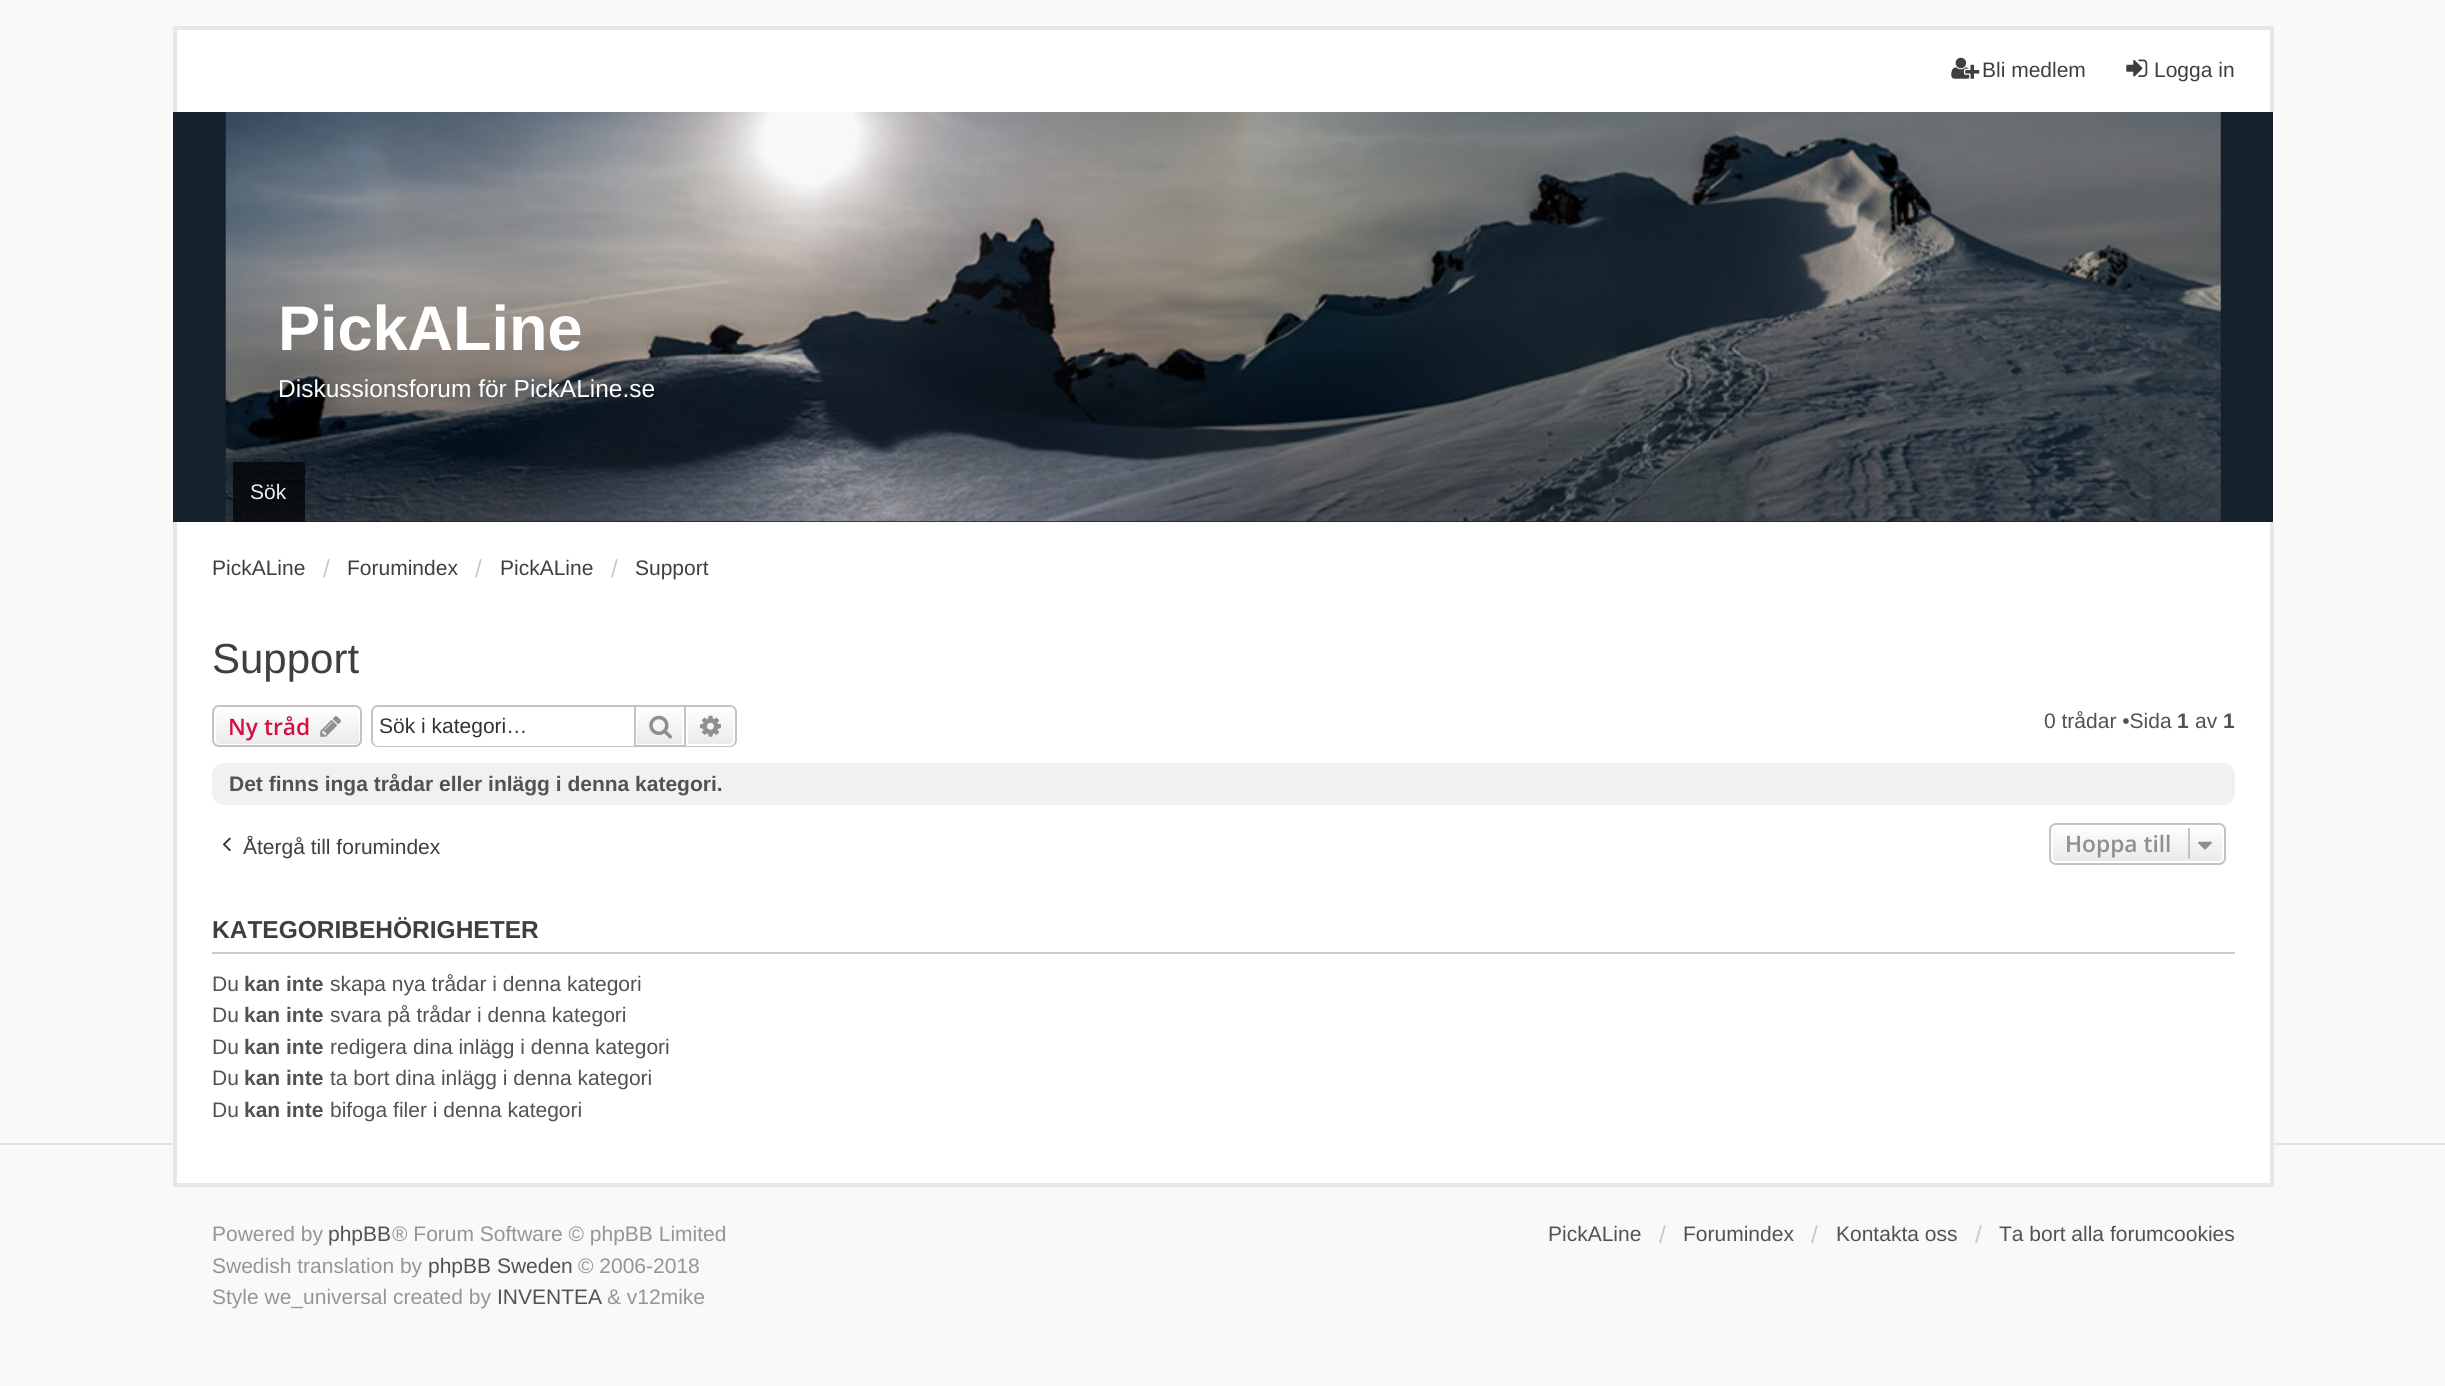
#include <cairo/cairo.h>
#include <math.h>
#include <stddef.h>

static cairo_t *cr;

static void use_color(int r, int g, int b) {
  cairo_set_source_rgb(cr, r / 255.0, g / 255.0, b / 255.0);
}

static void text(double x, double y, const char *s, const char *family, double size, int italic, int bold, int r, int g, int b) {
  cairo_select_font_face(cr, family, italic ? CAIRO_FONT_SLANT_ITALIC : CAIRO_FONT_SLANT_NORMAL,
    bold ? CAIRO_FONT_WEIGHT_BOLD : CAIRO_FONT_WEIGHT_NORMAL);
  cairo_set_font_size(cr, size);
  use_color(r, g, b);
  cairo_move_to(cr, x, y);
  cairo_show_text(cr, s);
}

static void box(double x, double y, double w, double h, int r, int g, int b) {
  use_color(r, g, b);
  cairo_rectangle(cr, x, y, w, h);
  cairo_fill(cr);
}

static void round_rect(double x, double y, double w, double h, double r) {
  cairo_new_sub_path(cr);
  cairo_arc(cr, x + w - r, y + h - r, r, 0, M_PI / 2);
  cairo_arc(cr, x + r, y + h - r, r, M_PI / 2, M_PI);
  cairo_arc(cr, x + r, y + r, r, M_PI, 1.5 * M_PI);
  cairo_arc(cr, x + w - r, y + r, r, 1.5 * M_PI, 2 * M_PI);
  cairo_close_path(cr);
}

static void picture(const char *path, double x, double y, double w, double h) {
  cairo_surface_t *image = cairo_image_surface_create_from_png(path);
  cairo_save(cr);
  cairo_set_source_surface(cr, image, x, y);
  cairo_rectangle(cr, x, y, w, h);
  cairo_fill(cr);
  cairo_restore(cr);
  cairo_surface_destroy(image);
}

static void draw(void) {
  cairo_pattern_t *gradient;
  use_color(249, 249, 249);
  cairo_paint(cr);
  box(177, 30, 2093, 82, 255, 255, 255);
  box(173, 26, 2100, 4, 231, 231, 231);
  box(2270, 26, 4, 86, 231, 231, 231);
  box(173, 26, 4, 86, 231, 231, 231);
  picture("img_01.png", 1951, 57, 29, 22);
  picture("img_02.png", 2126, 59, 22, 18);
  box(173, 112, 2100, 410, 21, 33, 45);
  picture("img_03.png", 225, 112, 1996, 410);
  cairo_set_source_rgba(cr, 0, 0, 0, 0.7);
  cairo_rectangle(cr, 233, 462, 72, 60);
  cairo_fill(cr);
  box(0, 1143, 2445, 2, 226, 226, 226);
  box(177, 522, 2093, 661, 255, 255, 255);
  box(2270, 522, 4, 665, 231, 231, 231);
  box(173, 1183, 2100, 4, 231, 231, 231);
  box(173, 522, 4, 665, 231, 231, 231);
  cairo_save(cr);
  round_rect(212, 705, 150, 42, 7);
  cairo_clip(cr);
  gradient = cairo_pattern_create_linear(287, 707, 287, 746);
  cairo_pattern_add_color_stop_rgba(gradient, 0, 1, 1, 1, 1);
  cairo_pattern_add_color_stop_rgba(gradient, 1, 0.914, 0.914, 0.914, 1);
  cairo_set_source(cr, gradient);
  cairo_pattern_destroy(gradient);
  cairo_rectangle(cr, 212, 707, 150, 39);
  cairo_fill(cr);
  cairo_restore(cr);
  round_rect(215, 708, 145, 37, 4);
  use_color(255, 255, 255);
  cairo_stroke(cr);
  round_rect(213, 706, 148, 40, 6);
  use_color(199, 195, 191);
  cairo_stroke(cr);
  picture("img_04.png", 320, 716, 21, 21);
  cairo_set_fill_rule(cr, CAIRO_FILL_RULE_EVEN_ODD);
  cairo_new_path(cr);
  cairo_move_to(cr, 378, 705);
  cairo_line_to(cr, 634, 705);
  cairo_line_to(cr, 634, 747);
  cairo_line_to(cr, 378, 747);
  cairo_curve_to(cr, 374, 747, 371, 744, 371, 740);
  cairo_line_to(cr, 371, 712);
  cairo_curve_to(cr, 371, 708, 374, 705, 378, 705);
  cairo_close_path(cr);
  cairo_move_to(cr, 378, 707);
  cairo_line_to(cr, 634, 707);
  cairo_line_to(cr, 634, 746);
  cairo_line_to(cr, 378, 746);
  cairo_curve_to(cr, 375, 746, 373, 743, 373, 740);
  cairo_line_to(cr, 373, 712);
  cairo_curve_to(cr, 373, 709, 375, 707, 378, 707);
  cairo_close_path(cr);
  cairo_fill(cr);
  gradient = cairo_pattern_create_linear(660, 707, 660, 746);
  cairo_pattern_add_color_stop_rgba(gradient, 0, 1, 1, 1, 1);
  cairo_pattern_add_color_stop_rgba(gradient, 1, 0.914, 0.914, 0.914, 1);
  cairo_set_source(cr, gradient);
  cairo_pattern_destroy(gradient);
  cairo_rectangle(cr, 637, 711, 45, 33);
  cairo_fill(cr);
  cairo_rectangle(cr, 635, 706, 50, 40);
  use_color(199, 195, 191);
  cairo_stroke(cr);
  picture("img_05.png", 649, 715, 23, 24);
  gradient = cairo_pattern_create_linear(711, 707, 711, 746);
  cairo_pattern_add_color_stop_rgba(gradient, 0, 1, 1, 1, 1);
  cairo_pattern_add_color_stop_rgba(gradient, 1, 0.914, 0.914, 0.914, 1);
  cairo_set_source(cr, gradient);
  cairo_pattern_destroy(gradient);
  cairo_new_path(cr);
  cairo_move_to(cr, 687, 708);
  cairo_line_to(cr, 730, 708);
  cairo_curve_to(cr, 732, 708, 734, 710, 734, 712);
  cairo_line_to(cr, 734, 741);
  cairo_curve_to(cr, 734, 743, 732, 745, 730, 745);
  cairo_line_to(cr, 687, 745);
  cairo_close_path(cr);
  cairo_fill_preserve(cr);
  use_color(255, 255, 255);
  cairo_stroke(cr);
  use_color(199, 195, 191);
  cairo_new_path(cr);
  cairo_move_to(cr, 686, 705);
  cairo_line_to(cr, 730, 705);
  cairo_curve_to(cr, 734, 705, 737, 708, 737, 712);
  cairo_line_to(cr, 737, 740);
  cairo_curve_to(cr, 737, 744, 734, 747, 730, 747);
  cairo_line_to(cr, 686, 747);
  cairo_close_path(cr);
  cairo_move_to(cr, 686, 707);
  cairo_line_to(cr, 730, 707);
  cairo_curve_to(cr, 733, 707, 735, 709, 735, 712);
  cairo_line_to(cr, 735, 740);
  cairo_curve_to(cr, 735, 743, 733, 746, 730, 746);
  cairo_line_to(cr, 686, 746);
  cairo_close_path(cr);
  cairo_fill(cr);
  picture("img_06.png", 700, 715, 21, 22);
  use_color(241, 241, 241);
  round_rect(212, 763, 2023, 42, 12);
  cairo_fill(cr);
  picture("img_07.png", 222, 837, 9, 15);
  cairo_save(cr);
  cairo_set_fill_rule(cr, CAIRO_FILL_RULE_WINDING);
  round_rect(2049, 823, 177, 42, 7);
  cairo_clip(cr);
  gradient = cairo_pattern_create_linear(2138, 824, 2138, 863);
  cairo_pattern_add_color_stop_rgba(gradient, 0, 1, 1, 1, 1);
  cairo_pattern_add_color_stop_rgba(gradient, 1, 0.914, 0.914, 0.914, 1);
  cairo_set_source(cr, gradient);
  cairo_pattern_destroy(gradient);
  cairo_rectangle(cr, 2049, 824, 177, 39);
  cairo_fill(cr);
  cairo_restore(cr);
  round_rect(2052, 825, 171, 37, 4);
  use_color(255, 255, 255);
  cairo_stroke(cr);
  round_rect(2050, 824, 175, 40, 6);
  use_color(199, 195, 191);
  cairo_stroke(cr);
  box(2188, 828, 2, 31, 199, 195, 191);
  picture("img_08.png", 2198, 841, 14, 9);
  box(212, 952, 2023, 2, 204, 204, 204);
  text(1982, 77, "Bli medlem", "Liberation Sans", 21, 0, 0, 63, 63, 63);
  text(2154, 77, "Logga in", "Liberation Sans", 21, 0, 0, 63, 63, 63);
  text(278, 350, "PickALine", "Liberation Sans", 63, 0, 1, 255, 255, 255);
  text(278, 397, "Diskussionsforum för PickALine.se", "Liberation Sans", 24.5, 0, 0, 255, 255, 255);
  text(250, 499, "Sök", "Liberation Sans", 21, 0, 0, 238, 238, 238);
  text(212, 575, "PickALine", "Liberation Sans", 21, 0, 0, 63, 63, 63);
  text(323, 577, "/", "Liberation Sans", 24.5, 0, 0, 202, 202, 202);
  text(347, 575, "Forumindex", "Liberation Sans", 21, 0, 0, 63, 63, 63);
  text(475, 577, "/", "Liberation Sans", 24.5, 0, 0, 202, 202, 202);
  text(500, 575, "PickALine", "Liberation Sans", 21, 0, 0, 63, 63, 63);
  text(611, 577, "/", "Liberation Sans", 24.5, 0, 0, 202, 202, 202);
  text(635, 575, "Support", "Liberation Sans", 21, 0, 0, 63, 63, 63);
  text(212, 673, "Support", "Liberation Sans", 42, 0, 0, 63, 63, 63);
  text(228, 735, "Ny tråd", "Open Sans SemiBold", 22.75, 0, 0, 211, 17, 65);
  text(379, 733, "Sök i kategori…", "Liberation Sans", 21, 0, 0, 51, 51, 51);
  text(2044, 728, "0 trådar •Sida", "Liberation Sans", 21, 0, 0, 82, 82, 82);
  text(2177, 728, "1", "Liberation Sans", 21, 0, 1, 82, 82, 82);
  text(2195, 728, "av", "Liberation Sans", 21, 0, 0, 82, 82, 82);
  text(2223, 728, "1", "Liberation Sans", 21, 0, 1, 82, 82, 82);
  text(229, 791, "Det finns inga trådar eller inlägg i denna kategori.", "Liberation Sans", 21, 0, 1, 82, 82, 82);
  text(243, 854, "Återgå till forumindex", "Liberation Sans", 21, 0, 0, 63, 63, 63);
  text(2065, 852, "Hoppa till", "Open Sans SemiBold", 22.75, 0, 0, 143, 143, 143);
  text(212, 938, "KATEGORIBEHÖRIGHETER", "Liberation Sans", 24.5, 0, 1, 63, 63, 63);
  text(212, 991, "Du", "Liberation Sans", 21, 0, 0, 82, 82, 82);
  text(244, 991, "kan inte", "Liberation Sans", 21, 0, 1, 82, 82, 82);
  text(330, 991, "skapa nya trådar i denna kategori", "Liberation Sans", 21, 0, 0, 82, 82, 82);
  text(212, 1022, "Du", "Liberation Sans", 21, 0, 0, 82, 82, 82);
  text(244, 1022, "kan inte", "Liberation Sans", 21, 0, 1, 82, 82, 82);
  text(330, 1022, "svara på trådar i denna kategori", "Liberation Sans", 21, 0, 0, 82, 82, 82);
  text(212, 1054, "Du", "Liberation Sans", 21, 0, 0, 82, 82, 82);
  text(244, 1054, "kan inte", "Liberation Sans", 21, 0, 1, 82, 82, 82);
  text(330, 1054, "redigera dina inlägg i denna kategori", "Liberation Sans", 21, 0, 0, 82, 82, 82);
  text(212, 1085, "Du", "Liberation Sans", 21, 0, 0, 82, 82, 82);
  text(244, 1085, "kan inte", "Liberation Sans", 21, 0, 1, 82, 82, 82);
  text(330, 1085, "ta bort dina inlägg i denna kategori", "Liberation Sans", 21, 0, 0, 82, 82, 82);
  text(212, 1117, "Du", "Liberation Sans", 21, 0, 0, 82, 82, 82);
  text(244, 1117, "kan inte", "Liberation Sans", 21, 0, 1, 82, 82, 82);
  text(330, 1117, "bifoga filer i denna kategori", "Liberation Sans", 21, 0, 0, 82, 82, 82);
  text(212, 1241, "Powered by", "Liberation Sans", 21, 0, 0, 149, 149, 149);
  text(328, 1241, "phpBB", "Liberation Sans", 21, 0, 0, 82, 82, 82);
  text(392, 1241, "® Forum Software © phpBB Limited", "Liberation Sans", 21, 0, 0, 149, 149, 149);
  text(212, 1273, "Swedish translation by", "Liberation Sans", 21, 0, 0, 149, 149, 149);
  text(428, 1273, "phpBB Sweden", "Liberation Sans", 21, 0, 0, 82, 82, 82);
  text(578, 1273, "© 2006-2018", "Liberation Sans", 21, 0, 0, 149, 149, 149);
  text(212, 1304, "Style we_universal created by", "Liberation Sans", 21, 0, 0, 149, 149, 149);
  text(497, 1304, "INVENTEA", "Liberation Sans", 21, 0, 0, 82, 82, 82);
  text(607, 1304, "& v12mike", "Liberation Sans", 21, 0, 0, 149, 149, 149);
  text(1548, 1241, "PickALine", "Liberation Sans", 21, 0, 0, 82, 82, 82);
  text(1659, 1243, "/", "Liberation Sans", 24.5, 0, 0, 202, 202, 202);
  text(1683, 1241, "Forumindex", "Liberation Sans", 21, 0, 0, 82, 82, 82);
  text(1811, 1243, "/", "Liberation Sans", 24.5, 0, 0, 202, 202, 202);
  text(1836, 1241, "Kontakta oss", "Liberation Sans", 21, 0, 0, 82, 82, 82);
  text(1975, 1243, "/", "Liberation Sans", 24.5, 0, 0, 202, 202, 202);
  text(1999, 1241, "Ta bort alla forumcookies", "Liberation Sans", 21, 0, 0, 82, 82, 82);
}

int main(void) {
  cairo_surface_t *surface = cairo_image_surface_create(CAIRO_FORMAT_RGB24, 2445, 1386);
  cr = cairo_create(surface);
  cairo_font_options_t *options = cairo_font_options_create();
  cairo_font_options_set_hint_metrics(options, CAIRO_HINT_METRICS_OFF);
  cairo_font_options_set_hint_style(options, CAIRO_HINT_STYLE_NONE);
  cairo_set_font_options(cr, options);
  cairo_set_miter_limit(cr, 4);
  draw();
  cairo_surface_write_to_png(surface, "out.png");
  cairo_font_options_destroy(options);
  cairo_destroy(cr);
  cairo_surface_destroy(surface);
  return 0;
}
